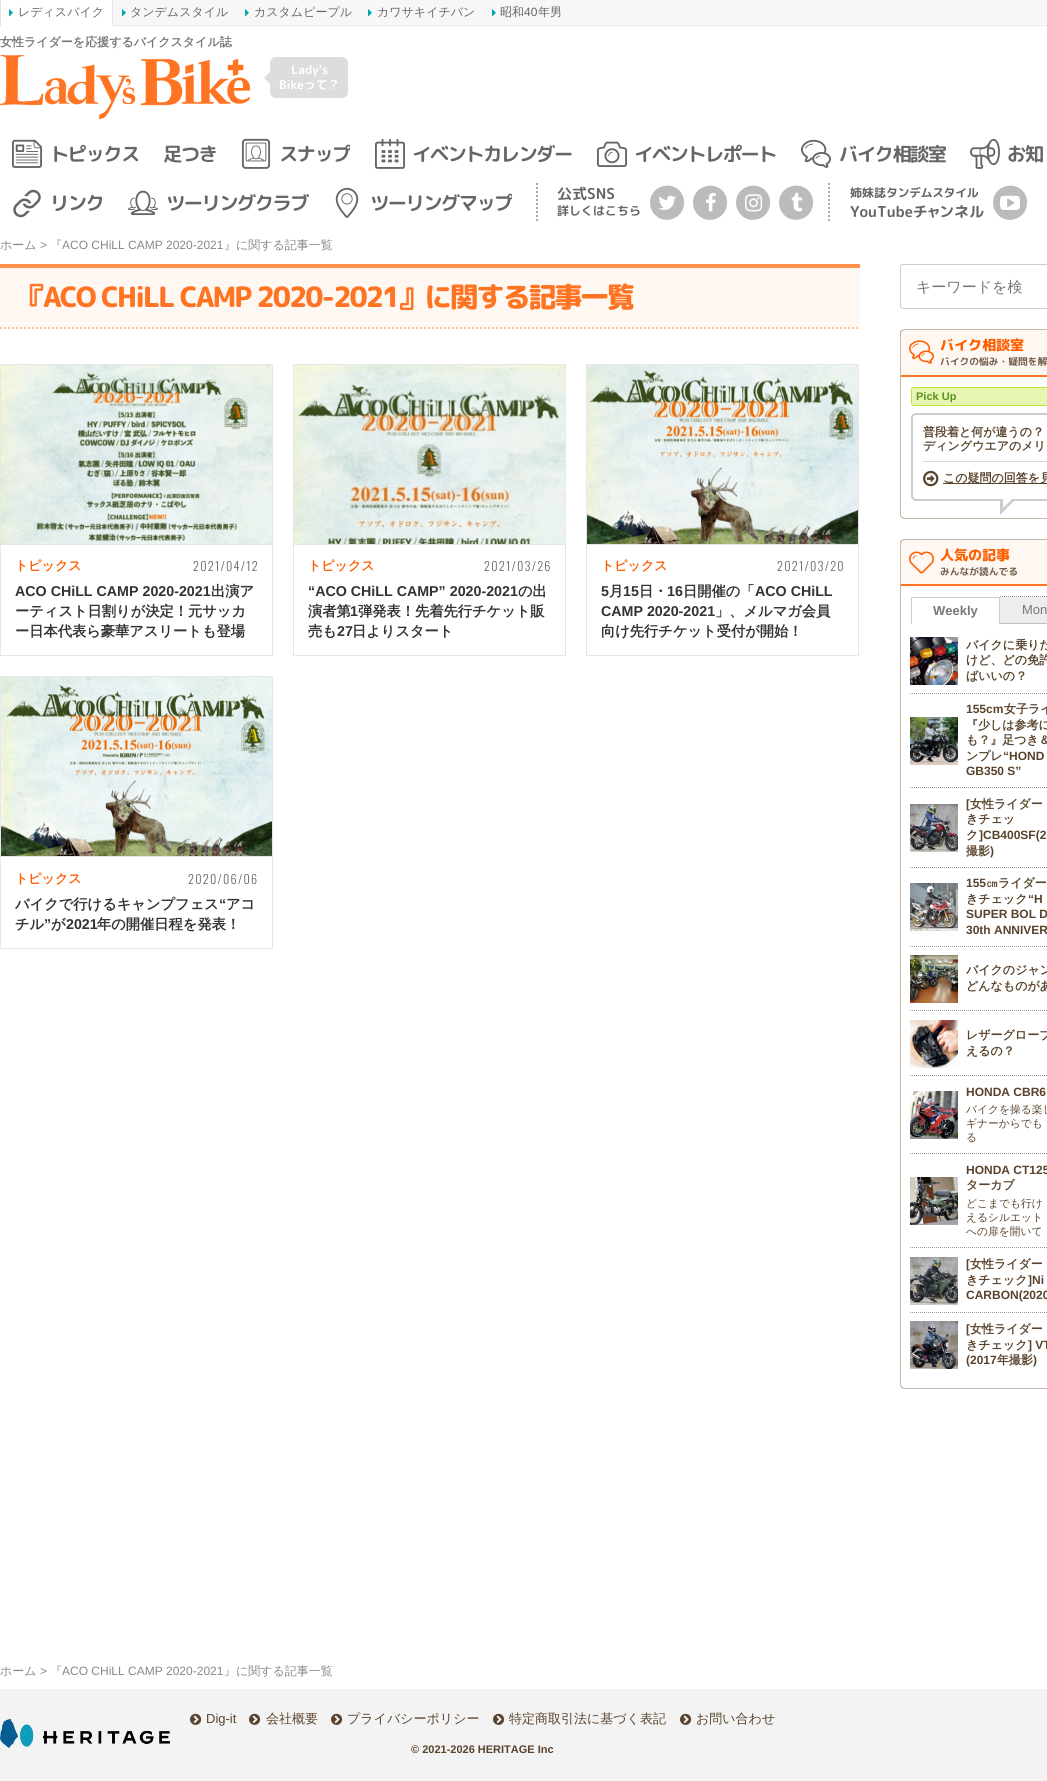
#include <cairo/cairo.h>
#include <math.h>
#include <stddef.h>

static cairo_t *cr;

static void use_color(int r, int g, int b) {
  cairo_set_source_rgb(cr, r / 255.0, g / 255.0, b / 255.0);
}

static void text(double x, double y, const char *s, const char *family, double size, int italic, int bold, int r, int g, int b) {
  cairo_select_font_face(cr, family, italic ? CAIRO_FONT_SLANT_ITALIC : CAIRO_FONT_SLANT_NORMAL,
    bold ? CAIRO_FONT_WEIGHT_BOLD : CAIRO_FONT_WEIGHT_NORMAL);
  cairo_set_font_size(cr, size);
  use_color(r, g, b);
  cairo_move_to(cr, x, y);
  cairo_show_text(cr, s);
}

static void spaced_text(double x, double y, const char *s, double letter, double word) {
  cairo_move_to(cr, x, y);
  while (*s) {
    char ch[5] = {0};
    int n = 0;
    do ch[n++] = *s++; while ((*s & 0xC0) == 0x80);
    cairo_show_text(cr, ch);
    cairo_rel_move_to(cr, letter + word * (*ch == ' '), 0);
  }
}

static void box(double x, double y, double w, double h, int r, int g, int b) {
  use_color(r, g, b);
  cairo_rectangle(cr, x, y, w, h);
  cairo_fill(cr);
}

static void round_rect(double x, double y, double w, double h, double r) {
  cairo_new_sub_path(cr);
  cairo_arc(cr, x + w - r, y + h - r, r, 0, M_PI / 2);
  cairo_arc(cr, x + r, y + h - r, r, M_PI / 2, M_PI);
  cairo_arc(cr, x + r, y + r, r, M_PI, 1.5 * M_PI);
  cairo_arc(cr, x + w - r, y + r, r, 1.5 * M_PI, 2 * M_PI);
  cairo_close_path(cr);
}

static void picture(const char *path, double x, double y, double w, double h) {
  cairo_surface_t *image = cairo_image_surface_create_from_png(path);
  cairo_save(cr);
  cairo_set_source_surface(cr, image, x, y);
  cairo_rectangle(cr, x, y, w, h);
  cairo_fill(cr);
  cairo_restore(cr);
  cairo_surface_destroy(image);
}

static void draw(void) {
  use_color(255, 255, 255);
  cairo_paint(cr);
  box(113, 0, 934, 25, 247, 247, 247);
  box(113, 25, 934, 1, 235, 235, 235);
  box(112, 0, 1, 26, 227, 227, 227);
  box(0, 0, 1, 26, 227, 227, 227);
  picture("img_01.png", 9, 9, 4, 8);
  picture("img_02.png", 122, 9, 4, 8);
  picture("img_02.png", 245, 9, 4, 8);
  picture("img_02.png", 368, 9, 4, 8);
  picture("img_02.png", 492, 9, 4, 8);
  picture("img_03.png", 0, 55, 250, 64);
  use_color(221, 221, 221);
  round_rect(270, 57, 78, 41, 6);
  cairo_fill(cr);
  cairo_new_path(cr);
  cairo_move_to(cr, 270, 72);
  cairo_line_to(cr, 270, 84);
  cairo_line_to(cr, 264, 78);
  cairo_close_path(cr);
  cairo_fill(cr);
  picture("img_04.png", 12, 139, 30, 29);
  picture("img_05.png", 241, 138, 30, 31);
  picture("img_06.png", 375, 138, 30, 31);
  picture("img_07.png", 597, 141, 30, 26);
  picture("img_08.png", 801, 139, 30, 29);
  picture("img_09.png", 970, 138, 30, 31);
  picture("img_10.png", 13, 189, 28, 29);
  picture("img_11.png", 128, 190, 30, 26);
  picture("img_12.png", 335, 187, 24, 31);
  cairo_new_path(cr);
  cairo_move_to(cr, 537, 183);
  cairo_line_to(cr, 537, 223);
  use_color(170, 170, 170);
  cairo_set_dash(cr, (double[]){2, 2}, 2, 0);
  cairo_stroke(cr);
  use_color(187, 187, 187);
  cairo_new_path(cr);
  cairo_move_to(cr, 682, 194);
  cairo_curve_to(cr, 683.5, 197, 684.5, 200.5, 684, 204);
  cairo_curve_to(cr, 683, 220.5, 660.5, 226, 652.5, 211.5);
  cairo_curve_to(cr, 650.5, 208.5, 650, 205, 650, 201.5);
  cairo_curve_to(cr, 651, 185, 673.5, 179.5, 682, 194);
  cairo_close_path(cr);
  cairo_fill(cr);
  picture("img_13.png", 658, 195, 18, 15);
  cairo_new_path(cr);
  cairo_move_to(cr, 725, 194);
  cairo_curve_to(cr, 726.5, 197, 727.5, 200.5, 727, 204);
  cairo_curve_to(cr, 726, 220.5, 703.5, 226, 695.5, 211.5);
  cairo_curve_to(cr, 693.5, 208.5, 693, 205, 693, 201.5);
  cairo_curve_to(cr, 694, 185, 716.5, 179.5, 725, 194);
  cairo_close_path(cr);
  cairo_fill(cr);
  picture("img_14.png", 706, 192, 10, 20);
  cairo_new_path(cr);
  cairo_move_to(cr, 768, 194);
  cairo_curve_to(cr, 769.5, 197, 770.5, 200.5, 770, 204);
  cairo_curve_to(cr, 769, 220.5, 746.5, 226, 738.5, 211.5);
  cairo_curve_to(cr, 736.5, 208.5, 736, 205, 736, 201.5);
  cairo_curve_to(cr, 737, 185, 759.5, 179.5, 768, 194);
  cairo_close_path(cr);
  cairo_fill(cr);
  picture("img_15.png", 745, 194, 18, 18);
  cairo_new_path(cr);
  cairo_move_to(cr, 811, 194);
  cairo_curve_to(cr, 812.5, 197, 813.5, 200.5, 813, 204);
  cairo_curve_to(cr, 812, 220.5, 789.5, 226, 781.5, 211.5);
  cairo_curve_to(cr, 779.5, 208.5, 779, 205, 779, 201.5);
  cairo_curve_to(cr, 780, 185, 802.5, 179.5, 811, 194);
  cairo_close_path(cr);
  cairo_fill(cr);
  picture("img_16.png", 791, 192, 12, 20);
  cairo_new_path(cr);
  cairo_move_to(cr, 829, 183);
  cairo_line_to(cr, 829, 223);
  use_color(170, 170, 170);
  cairo_stroke(cr);
  use_color(187, 187, 187);
  cairo_new_path(cr);
  cairo_move_to(cr, 1025, 194);
  cairo_curve_to(cr, 1026.5, 197, 1027.5, 200.5, 1027, 204);
  cairo_curve_to(cr, 1026, 220.5, 1003.5, 226, 995.5, 211.5);
  cairo_curve_to(cr, 993.5, 208.5, 993, 205, 993, 201.5);
  cairo_curve_to(cr, 994, 185, 1016.5, 179.5, 1025, 194);
  cairo_close_path(cr);
  cairo_fill(cr);
  picture("img_17.png", 1000, 195, 20, 15);
  box(0, 268, 860, 61, 255, 247, 242);
  box(0, 264, 860, 4, 255, 144, 78);
  cairo_new_path(cr);
  cairo_move_to(cr, 0, 328);
  cairo_line_to(cr, 860, 328);
  use_color(255, 199, 167);
  cairo_stroke(cr);
  cairo_rectangle(cr, 0.5, 364.5, 272, 291);
  use_color(231, 231, 231);
  cairo_set_line_width(cr, 1);
  cairo_set_dash(cr, NULL, 0, 0);
  cairo_stroke(cr);
  box(1, 544, 271, 1, 231, 231, 231);
  picture("img_18.png", 1, 365, 271, 179);
  cairo_rectangle(cr, 293.5, 364.5, 272, 291);
  cairo_stroke(cr);
  box(294, 544, 271, 1, 231, 231, 231);
  picture("img_19.png", 294, 365, 271, 179);
  cairo_rectangle(cr, 586.5, 364.5, 272, 291);
  cairo_stroke(cr);
  box(587, 544, 271, 1, 231, 231, 231);
  picture("img_20.png", 587, 365, 271, 179);
  cairo_rectangle(cr, 0.5, 676.5, 272, 272);
  cairo_stroke(cr);
  box(1, 856, 271, 1, 231, 231, 231);
  picture("img_21.png", 1, 677, 271, 179);
  round_rect(900.5, 264.5, 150, 44, 2.5);
  use_color(204, 204, 204);
  cairo_stroke(cr);
  use_color(255, 247, 242);
  cairo_new_path(cr);
  cairo_move_to(cr, 905, 330);
  cairo_line_to(cr, 1047, 330);
  cairo_curve_to(cr, 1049, 330, 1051, 332, 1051, 334);
  cairo_line_to(cr, 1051, 375);
  cairo_line_to(cr, 901, 375);
  cairo_line_to(cr, 901, 334);
  cairo_curve_to(cr, 901, 332, 903, 330, 905, 330);
  cairo_close_path(cr);
  cairo_fill(cr);
  use_color(195, 185, 171);
  cairo_new_path(cr);
  cairo_move_to(cr, 905, 329);
  cairo_curve_to(cr, 904, 329, 902, 330, 901, 330);
  cairo_line_to(cr, 902, 331);
  cairo_line_to(cr, 905, 330);
  cairo_line_to(cr, 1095, 330);
  cairo_line_to(cr, 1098, 331);
  cairo_line_to(cr, 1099, 330);
  cairo_curve_to(cr, 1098, 330, 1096, 329, 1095, 329);
  cairo_close_path(cr);
  cairo_fill(cr);
  use_color(255, 116, 34);
  cairo_new_path(cr);
  cairo_move_to(cr, 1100, 377);
  cairo_line_to(cr, 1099, 375);
  cairo_line_to(cr, 901, 375);
  cairo_line_to(cr, 900, 377);
  cairo_close_path(cr);
  cairo_fill(cr);
  use_color(195, 185, 171);
  cairo_new_path(cr);
  cairo_move_to(cr, 900, 377);
  cairo_line_to(cr, 901, 375);
  cairo_line_to(cr, 901, 334);
  cairo_curve_to(cr, 901, 333, 902, 332, 902, 331);
  cairo_line_to(cr, 901, 330);
  cairo_curve_to(cr, 900, 331, 900, 332, 900, 334);
  cairo_close_path(cr);
  cairo_fill(cr);
  picture("img_22.png", 909, 340, 25, 24);
  cairo_set_fill_rule(cr, CAIRO_FILL_RULE_EVEN_ODD);
  cairo_new_path(cr);
  cairo_move_to(cr, 900, 377);
  cairo_line_to(cr, 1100, 377);
  cairo_line_to(cr, 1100, 514);
  cairo_curve_to(cr, 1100, 517, 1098, 519, 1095, 519);
  cairo_line_to(cr, 905, 519);
  cairo_curve_to(cr, 902, 519, 900, 517, 900, 514);
  cairo_close_path(cr);
  cairo_move_to(cr, 901, 377);
  cairo_line_to(cr, 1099, 377);
  cairo_line_to(cr, 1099, 514);
  cairo_curve_to(cr, 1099, 516, 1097, 518, 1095, 518);
  cairo_line_to(cr, 905, 518);
  cairo_curve_to(cr, 903, 518, 901, 516, 901, 514);
  cairo_close_path(cr);
  cairo_fill(cr);
  use_color(230, 245, 177);
  round_rect(911.5, 387.5, 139, 18, 2.5);
  cairo_fill_preserve(cr);
  use_color(191, 230, 62);
  cairo_stroke(cr);
  round_rect(912, 414, 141, 86, 4);
  use_color(204, 204, 204);
  cairo_set_line_width(cr, 2);
  cairo_stroke(cr);
  box(923, 461, 124, 1, 220, 214, 205);
  picture("img_23.png", 923, 470, 16, 17);
  box(943, 483, 104, 1, 89, 67, 44);
  use_color(204, 204, 204);
  cairo_set_fill_rule(cr, CAIRO_FILL_RULE_WINDING);
  cairo_new_path(cr);
  cairo_move_to(cr, 1000, 499);
  cairo_line_to(cr, 1016, 499);
  cairo_line_to(cr, 1008, 507);
  cairo_close_path(cr);
  cairo_fill(cr);
  cairo_new_path(cr);
  cairo_move_to(cr, 1000, 515);
  cairo_line_to(cr, 1000, 499);
  cairo_line_to(cr, 1008, 507);
  cairo_close_path(cr);
  cairo_fill(cr);
  use_color(255, 255, 255);
  cairo_new_path(cr);
  cairo_move_to(cr, 1003, 498);
  cairo_line_to(cr, 1013, 498);
  cairo_line_to(cr, 1008, 503);
  cairo_close_path(cr);
  cairo_fill(cr);
  cairo_new_path(cr);
  cairo_move_to(cr, 1003, 508);
  cairo_line_to(cr, 1003, 498);
  cairo_line_to(cr, 1008, 503);
  cairo_close_path(cr);
  cairo_fill(cr);
  use_color(255, 247, 242);
  cairo_new_path(cr);
  cairo_move_to(cr, 905, 540);
  cairo_line_to(cr, 1047, 540);
  cairo_curve_to(cr, 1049, 540, 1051, 542, 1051, 544);
  cairo_line_to(cr, 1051, 584);
  cairo_line_to(cr, 901, 584);
  cairo_line_to(cr, 901, 544);
  cairo_curve_to(cr, 901, 542, 903, 540, 905, 540);
  cairo_close_path(cr);
  cairo_fill(cr);
  use_color(195, 185, 171);
  cairo_new_path(cr);
  cairo_move_to(cr, 905, 539);
  cairo_curve_to(cr, 904, 539, 902, 540, 901, 540);
  cairo_line_to(cr, 902, 541);
  cairo_line_to(cr, 905, 540);
  cairo_line_to(cr, 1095, 540);
  cairo_line_to(cr, 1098, 541);
  cairo_line_to(cr, 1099, 540);
  cairo_curve_to(cr, 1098, 540, 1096, 539, 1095, 539);
  cairo_close_path(cr);
  cairo_fill(cr);
  use_color(255, 116, 34);
  cairo_new_path(cr);
  cairo_move_to(cr, 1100, 586);
  cairo_line_to(cr, 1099, 584);
  cairo_line_to(cr, 901, 584);
  cairo_line_to(cr, 900, 586);
  cairo_close_path(cr);
  cairo_fill(cr);
  use_color(195, 185, 171);
  cairo_new_path(cr);
  cairo_move_to(cr, 900, 586);
  cairo_line_to(cr, 901, 584);
  cairo_line_to(cr, 901, 544);
  cairo_curve_to(cr, 901, 543, 902, 542, 902, 541);
  cairo_line_to(cr, 901, 540);
  cairo_curve_to(cr, 900, 541, 900, 542, 900, 544);
  cairo_close_path(cr);
  cairo_fill(cr);
  picture("img_24.png", 909, 551, 25, 23);
  cairo_set_fill_rule(cr, CAIRO_FILL_RULE_EVEN_ODD);
  cairo_new_path(cr);
  cairo_move_to(cr, 900, 586);
  cairo_line_to(cr, 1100, 586);
  cairo_line_to(cr, 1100, 1384);
  cairo_curve_to(cr, 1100, 1387, 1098, 1389, 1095, 1389);
  cairo_line_to(cr, 905, 1389);
  cairo_curve_to(cr, 902, 1389, 900, 1387, 900, 1384);
  cairo_close_path(cr);
  cairo_move_to(cr, 901, 586);
  cairo_line_to(cr, 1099, 586);
  cairo_line_to(cr, 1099, 1384);
  cairo_curve_to(cr, 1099, 1386, 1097, 1388, 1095, 1388);
  cairo_line_to(cr, 905, 1388);
  cairo_curve_to(cr, 903, 1388, 901, 1386, 901, 1384);
  cairo_close_path(cr);
  cairo_fill(cr);
  use_color(204, 204, 204);
  cairo_set_fill_rule(cr, CAIRO_FILL_RULE_WINDING);
  cairo_new_path(cr);
  cairo_move_to(cr, 911, 597);
  cairo_line_to(cr, 1000, 597);
  cairo_line_to(cr, 999, 598);
  cairo_line_to(cr, 912, 598);
  cairo_close_path(cr);
  cairo_fill(cr);
  cairo_set_source_rgba(cr, 0, 0, 0, 0.2);
  cairo_new_path(cr);
  cairo_move_to(cr, 1000, 597);
  cairo_line_to(cr, 1000, 624);
  cairo_line_to(cr, 999, 624);
  cairo_line_to(cr, 999, 598);
  cairo_close_path(cr);
  cairo_fill(cr);
  cairo_new_path(cr);
  cairo_move_to(cr, 911, 624);
  cairo_line_to(cr, 911, 597);
  cairo_line_to(cr, 912, 598);
  cairo_line_to(cr, 912, 624);
  cairo_close_path(cr);
  cairo_fill(cr);
  cairo_new_path(cr);
  cairo_move_to(cr, 1000, 596.5);
  cairo_line_to(cr, 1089, 596.5);
  use_color(153, 153, 153);
  cairo_set_line_width(cr, 1);
  cairo_set_dash(cr, (double[]){1, 1}, 2, 0);
  cairo_stroke(cr);
  box(1000, 597, 47, 26, 237, 237, 237);
  box(1000, 623, 47, 1, 190, 190, 190);
  picture("img_25.png", 910, 637, 48, 48);
  cairo_new_path(cr);
  cairo_move_to(cr, 910, 693.5);
  cairo_line_to(cr, 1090, 693.5);
  use_color(153, 153, 153);
  cairo_stroke(cr);
  picture("img_26.png", 910, 717, 48, 48);
  cairo_new_path(cr);
  cairo_move_to(cr, 910, 787.5);
  cairo_line_to(cr, 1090, 787.5);
  cairo_stroke(cr);
  picture("img_27.png", 910, 804, 48, 48);
  cairo_new_path(cr);
  cairo_move_to(cr, 910, 867.5);
  cairo_line_to(cr, 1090, 867.5);
  cairo_stroke(cr);
  picture("img_28.png", 910, 883, 48, 48);
  cairo_new_path(cr);
  cairo_move_to(cr, 910, 946.5);
  cairo_line_to(cr, 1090, 946.5);
  cairo_stroke(cr);
  picture("img_29.png", 910, 955, 48, 48);
  cairo_new_path(cr);
  cairo_move_to(cr, 910, 1010.5);
  cairo_line_to(cr, 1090, 1010.5);
  cairo_stroke(cr);
  picture("img_30.png", 910, 1020, 48, 48);
  cairo_new_path(cr);
  cairo_move_to(cr, 910, 1075.5);
  cairo_line_to(cr, 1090, 1075.5);
  cairo_stroke(cr);
  picture("img_31.png", 910, 1091, 48, 48);
  cairo_new_path(cr);
  cairo_move_to(cr, 910, 1153.5);
  cairo_line_to(cr, 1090, 1153.5);
  cairo_stroke(cr);
  picture("img_32.png", 910, 1177, 48, 48);
  cairo_new_path(cr);
  cairo_move_to(cr, 910, 1247.5);
  cairo_line_to(cr, 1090, 1247.5);
  cairo_stroke(cr);
  picture("img_33.png", 910, 1257, 48, 48);
  cairo_new_path(cr);
  cairo_move_to(cr, 910, 1312.5);
  cairo_line_to(cr, 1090, 1312.5);
  cairo_stroke(cr);
  picture("img_34.png", 910, 1321, 48, 48);
  box(0, 1689, 1047, 92, 243, 243, 243);
  picture("img_35.png", 0, 1719, 170, 29);
  picture("img_36.png", 190, 1713, 12, 12);
  picture("img_36.png", 249, 1713, 12, 12);
  picture("img_36.png", 331, 1713, 12, 12);
  picture("img_36.png", 493, 1713, 12, 12);
  picture("img_36.png", 680, 1713, 12, 12);
  text(18, 16, "レディスバイク", "WenQuanYi Zen Hei Medium", 12, 0, 0, 102, 102, 102);
  text(130, 16, "タンデムスタイル", "WenQuanYi Zen Hei Medium", 12, 0, 0, 102, 102, 102);
  text(254, 16, "カスタムピープル", "WenQuanYi Zen Hei Medium", 12, 0, 0, 102, 102, 102);
  text(377, 16, "カワサキイチバン", "WenQuanYi Zen Hei Medium", 12, 0, 0, 102, 102, 102);
  text(500, 16, "昭和", "WenQuanYi Zen Hei Medium", 12, 0, 0, 102, 102, 102);
  text(524, 16, "40", "Liberation Sans", 12, 0, 0, 102, 102, 102);
  text(538, 16, "年男", "WenQuanYi Zen Hei Medium", 12, 0, 0, 102, 102, 102);
  text(0, 46, "女性ライダーを応援するバイクスタイル誌", "WenQuanYi Zen Hei", 12, 0, 1, 119, 119, 119);
  text(291, 74, "Lady's", "Rounded Mplus 1c Bold", 12, 0, 1, 255, 255, 255);
  text(279, 89, "Bikeって？", "Rounded Mplus 1c Bold", 12, 0, 1, 255, 255, 255);
  cairo_set_font_size(cr, 19.25);
  use_color(102, 102, 102);
  spaced_text(50, 161, "トピックス", -1.5, 0);
  spaced_text(163, 161, "足つき", -1.5, 0);
  cairo_save(cr);
  cairo_rectangle(cr, 241, 129, 109, 49);
  cairo_clip(cr);
  spaced_text(279, 161, "スナップ", -1.5, 0);
  cairo_restore(cr);
  spaced_text(412, 161, "イベントカレンダー", -1.5, 0);
  spaced_text(634, 161, "イベントレポート", -1.5, 0);
  spaced_text(839, 161, "バイク相談室", -1.5, 0);
  spaced_text(1007, 161, "お知", -1.5, 0);
  spaced_text(50, 210, "リンク", -1.5, 0);
  spaced_text(166, 210, "ツーリングクラブ", -1.5, 0);
  cairo_save(cr);
  cairo_rectangle(cr, 332, 178, 180, 50);
  cairo_clip(cr);
  spaced_text(370, 210, "ツーリングマップ", -1.5, 0);
  cairo_restore(cr);
  text(557, 199, "公式SNS", "Rounded Mplus 1c Bold", 15, 0, 1, 102, 102, 102);
  text(557, 215, "詳しくはこちら", "Rounded Mplus 1c Bold", 12, 0, 1, 102, 102, 102);
  text(850, 197, "姉妹誌", "Rounded Mplus 1c Bold", 12, 0, 1, 102, 102, 102);
  spaced_text(886, 197, "タンデムスタイル", -0.5, 0);
  text(850, 217, "YouTubeチ", "Rounded Mplus 1c Bold", 15, 0, 1, 102, 102, 102);
  text(926, 217, "ャ", "Rounded Mplus 1c Bold", 15, 0, 1, 102, 102, 102);
  text(939, 217, "ンネル", "Rounded Mplus 1c Bold", 15, 0, 1, 102, 102, 102);
  text(0, 249, "ホーム", "WenQuanYi Zen Hei Medium", 12, 0, 0, 136, 136, 136);
  text(40, 249, ">", "Liberation Sans", 12, 0, 0, 136, 136, 136);
  text(50, 249, "『", "WenQuanYi Zen Hei Medium", 12, 0, 0, 136, 136, 136);
  text(62, 249, "ACO CHiLL CAMP 2020-2021", "Liberation Sans", 12, 0, 0, 136, 136, 136);
  text(224, 249, "』に関する記事一覧", "WenQuanYi Zen Hei Medium", 12, 0, 0, 136, 136, 136);
  cairo_select_font_face(cr, "Rounded Mplus 1c ExtraBold", CAIRO_FONT_SLANT_NORMAL, CAIRO_FONT_WEIGHT_NORMAL);
  cairo_set_font_size(cr, 28);
  use_color(255, 116, 34);
  spaced_text(17, 307, "『ACO CHiLL CAMP 2020-2021』に関する記事一覧", -1.95, 0);
  text(15, 570, "トピックス", "WenQuanYi Zen Hei", 13, 0, 1, 253, 94, 0);
  cairo_select_font_face(cr, "Oswald Light", CAIRO_FONT_SLANT_NORMAL, CAIRO_FONT_WEIGHT_NORMAL);
  cairo_set_font_size(cr, 12.25);
  use_color(102, 102, 102);
  spaced_text(193, 571, "2021/04/12", 1.25, 0);
  text(15, 596, "ACO CHiLL CAMP 2020-2021", "Liberation Sans", 14.25, 0, 1, 51, 51, 51);
  text(211, 596, "出演ア", "WenQuanYi Zen Hei", 14.25, 0, 1, 51, 51, 51);
  text(15, 616, "ーティスト日割りが決定！元サッカ", "WenQuanYi Zen Hei", 14.25, 0, 1, 51, 51, 51);
  text(15, 636, "ー日本代表ら豪華アスリートも登場", "WenQuanYi Zen Hei", 14.25, 0, 1, 51, 51, 51);
  text(308, 570, "トピックス", "WenQuanYi Zen Hei", 13, 0, 1, 253, 94, 0);
  cairo_select_font_face(cr, "Oswald Light", CAIRO_FONT_SLANT_NORMAL, CAIRO_FONT_WEIGHT_NORMAL);
  cairo_set_font_size(cr, 12.25);
  use_color(102, 102, 102);
  spaced_text(484, 571, "2021/03/26", 1.25, 0);
  text(308, 596, "“ACO CHiLL CAMP” 2020-2021", "Liberation Sans", 14.25, 0, 1, 51, 51, 51);
  text(518, 596, "の出", "WenQuanYi Zen Hei", 14.25, 0, 1, 51, 51, 51);
  text(308, 616, "演者第", "WenQuanYi Zen Hei", 14.25, 0, 1, 51, 51, 51);
  text(350, 616, "1", "Liberation Sans", 14.25, 0, 1, 51, 51, 51);
  text(358, 616, "弾発表！先着先行チケット販", "WenQuanYi Zen Hei", 14.25, 0, 1, 51, 51, 51);
  text(308, 636, "売も", "WenQuanYi Zen Hei", 14.25, 0, 1, 51, 51, 51);
  text(337, 636, "27", "Liberation Sans", 14.25, 0, 1, 51, 51, 51);
  text(352, 636, "日よりスタート", "WenQuanYi Zen Hei", 14.25, 0, 1, 51, 51, 51);
  text(601, 570, "トピックス", "WenQuanYi Zen Hei", 13, 0, 1, 253, 94, 0);
  cairo_select_font_face(cr, "Oswald Light", CAIRO_FONT_SLANT_NORMAL, CAIRO_FONT_WEIGHT_NORMAL);
  cairo_set_font_size(cr, 12.25);
  use_color(102, 102, 102);
  spaced_text(777, 571, "2021/03/20", 1.25, 0);
  text(601, 596, "5", "Liberation Sans", 14.25, 0, 1, 51, 51, 51);
  text(609, 596, "月", "WenQuanYi Zen Hei", 14.25, 0, 1, 51, 51, 51);
  text(623, 596, "15", "Liberation Sans", 14.25, 0, 1, 51, 51, 51);
  text(639, 596, "日・", "WenQuanYi Zen Hei", 14.25, 0, 1, 51, 51, 51);
  text(667, 596, "16", "Liberation Sans", 14.25, 0, 1, 51, 51, 51);
  text(683, 596, "日開催の「", "WenQuanYi Zen Hei", 14.25, 0, 1, 51, 51, 51);
  text(755, 596, "ACO CHiLL", "Liberation Sans", 14.25, 0, 1, 51, 51, 51);
  text(601, 616, "CAMP 2020-2021", "Liberation Sans", 14.25, 0, 1, 51, 51, 51);
  text(715, 616, "」、メルマガ会員", "WenQuanYi Zen Hei", 14.25, 0, 1, 51, 51, 51);
  text(601, 636, "向け先行チケット受付が開始！", "WenQuanYi Zen Hei", 14.25, 0, 1, 51, 51, 51);
  text(15, 883, "トピックス", "WenQuanYi Zen Hei", 13, 0, 1, 253, 94, 0);
  cairo_select_font_face(cr, "Oswald Light", CAIRO_FONT_SLANT_NORMAL, CAIRO_FONT_WEIGHT_NORMAL);
  cairo_set_font_size(cr, 12.25);
  use_color(102, 102, 102);
  spaced_text(188, 884, "2020/06/06", 1.25, 0);
  text(15, 909, "バイクで行けるキャンプフェス", "WenQuanYi Zen Hei", 14.25, 0, 1, 51, 51, 51);
  text(219, 909, "“", "Liberation Sans", 14.25, 0, 1, 51, 51, 51);
  text(226, 909, "アコ", "WenQuanYi Zen Hei", 14.25, 0, 1, 51, 51, 51);
  text(15, 929, "チル", "WenQuanYi Zen Hei", 14.25, 0, 1, 51, 51, 51);
  text(44, 929, "”", "Liberation Sans", 14.25, 0, 1, 51, 51, 51);
  text(51, 929, "が", "WenQuanYi Zen Hei", 14.25, 0, 1, 51, 51, 51);
  text(66, 929, "2021", "Liberation Sans", 14.25, 0, 1, 51, 51, 51);
  text(97, 929, "年の開催日程を発表！", "WenQuanYi Zen Hei", 14.25, 0, 1, 51, 51, 51);
  text(916, 292, "キーワードを検", "WenQuanYi Zen Hei Medium", 15, 0, 0, 119, 119, 119);
  text(940, 350, "バイク相談室", "Rounded Mplus 1c ExtraBold", 14, 0, 0, 253, 94, 0);
  text(940, 365, "バイクの悩み・疑問を解", "Rounded Mplus 1c Bold", 9.75, 0, 1, 114, 95, 76);
  text(916, 400, "Pick Up", "Liberation Sans", 11, 0, 1, 94, 146, 31);
  text(923, 436, "普段着と何が違うの？", "WenQuanYi Zen Hei", 12, 0, 1, 89, 67, 44);
  text(923, 450, "ディングウエアのメリ", "WenQuanYi Zen Hei", 12, 0, 1, 89, 67, 44);
  text(943, 482, "この疑問の回答を見", "WenQuanYi Zen Hei", 12, 0, 1, 89, 67, 44);
  text(940, 560, "人気の記事", "Rounded Mplus 1c ExtraBold", 14, 0, 0, 253, 94, 0);
  text(940, 575, "みんなが読んでる", "Rounded Mplus 1c Bold", 9.75, 0, 1, 114, 95, 76);
  text(933, 615, "Weekly", "Liberation Sans", 13, 0, 1, 119, 119, 119);
  text(1022, 614, "Mon", "Liberation Sans", 13, 0, 0, 119, 119, 119);
  text(966, 649, "バイクに乗りた", "WenQuanYi Zen Hei", 12, 0, 1, 89, 67, 44);
  text(966, 664, "けど、どの免許", "WenQuanYi Zen Hei", 12, 0, 1, 89, 67, 44);
  text(966, 680, "ばいいの？", "WenQuanYi Zen Hei", 12, 0, 1, 89, 67, 44);
  text(966, 713, "155cm", "Liberation Sans", 12, 0, 1, 89, 67, 44);
  text(1004, 713, "女子ライ", "WenQuanYi Zen Hei", 12, 0, 1, 89, 67, 44);
  text(966, 729, "『少しは参考に", "WenQuanYi Zen Hei", 12, 0, 1, 89, 67, 44);
  text(966, 744, "も？』足つき＆", "WenQuanYi Zen Hei", 12, 0, 1, 89, 67, 44);
  text(966, 760, "ンプレ", "WenQuanYi Zen Hei", 12, 0, 1, 89, 67, 44);
  text(1003, 760, "“HOND", "Liberation Sans", 12, 0, 1, 89, 67, 44);
  text(966, 775, "GB350 S”", "Liberation Sans", 12, 0, 1, 89, 67, 44);
  text(966, 808, "[", "Liberation Sans", 12, 0, 1, 89, 67, 44);
  text(970, 808, "女性ライダー", "WenQuanYi Zen Hei", 12, 0, 1, 89, 67, 44);
  text(966, 823, "きチェッ", "WenQuanYi Zen Hei", 12, 0, 1, 89, 67, 44);
  text(966, 839, "ク", "WenQuanYi Zen Hei", 12, 0, 1, 89, 67, 44);
  text(979, 839, "]CB400SF(2", "Liberation Sans", 12, 0, 1, 89, 67, 44);
  text(966, 855, "撮影", "WenQuanYi Zen Hei", 12, 0, 1, 89, 67, 44);
  text(990, 855, ")", "Liberation Sans", 12, 0, 1, 89, 67, 44);
  text(966, 887, "155", "Liberation Sans", 12, 0, 1, 89, 67, 44);
  text(986, 887, "㎝ライダー", "WenQuanYi Zen Hei", 12, 0, 1, 89, 67, 44);
  text(966, 903, "きチェック", "WenQuanYi Zen Hei", 12, 0, 1, 89, 67, 44);
  text(1028, 903, "“H", "Liberation Sans", 12, 0, 1, 89, 67, 44);
  text(966, 918, "SUPER BOL D", "Liberation Sans", 12, 0, 1, 89, 67, 44);
  text(966, 934, "30th ANNIVER", "Liberation Sans", 12, 0, 1, 89, 67, 44);
  text(966, 974, "バイクのジャン", "WenQuanYi Zen Hei", 12, 0, 1, 89, 67, 44);
  text(966, 990, "どんなものがあ", "WenQuanYi Zen Hei", 12, 0, 1, 89, 67, 44);
  text(966, 1039, "レザーグローブ", "WenQuanYi Zen Hei", 12, 0, 1, 89, 67, 44);
  text(966, 1055, "えるの？", "WenQuanYi Zen Hei", 12, 0, 1, 89, 67, 44);
  text(966, 1096, "HONDA CBR6", "Liberation Sans", 12, 0, 1, 89, 67, 44);
  text(966, 1113, "バイクを操る楽し", "WenQuanYi Zen Hei Medium", 10.75, 0, 0, 89, 67, 44);
  text(966, 1127, "ギナーからでも", "WenQuanYi Zen Hei Medium", 10.75, 0, 0, 89, 67, 44);
  text(966, 1141, "る", "WenQuanYi Zen Hei Medium", 10.75, 0, 0, 89, 67, 44);
  text(966, 1174, "HONDA CT125", "Liberation Sans", 12, 0, 1, 89, 67, 44);
  text(966, 1189, "ターカブ", "WenQuanYi Zen Hei", 12, 0, 1, 89, 67, 44);
  text(966, 1207, "どこまでも行け", "WenQuanYi Zen Hei Medium", 10.75, 0, 0, 89, 67, 44);
  text(966, 1221, "えるシルエット", "WenQuanYi Zen Hei Medium", 10.75, 0, 0, 89, 67, 44);
  text(966, 1235, "への扉を開いて", "WenQuanYi Zen Hei Medium", 10.75, 0, 0, 89, 67, 44);
  text(966, 1268, "[", "Liberation Sans", 12, 0, 1, 89, 67, 44);
  text(970, 1268, "女性ライダー", "WenQuanYi Zen Hei", 12, 0, 1, 89, 67, 44);
  text(966, 1284, "きチェック", "WenQuanYi Zen Hei", 12, 0, 1, 89, 67, 44);
  text(1028, 1284, "]Ni", "Liberation Sans", 12, 0, 1, 89, 67, 44);
  text(966, 1299, "CARBON(2020", "Liberation Sans", 12, 0, 1, 89, 67, 44);
  text(966, 1333, "[", "Liberation Sans", 12, 0, 1, 89, 67, 44);
  text(970, 1333, "女性ライダー", "WenQuanYi Zen Hei", 12, 0, 1, 89, 67, 44);
  text(966, 1349, "きチェック", "WenQuanYi Zen Hei", 12, 0, 1, 89, 67, 44);
  text(1028, 1349, "] VT", "Liberation Sans", 12, 0, 1, 89, 67, 44);
  text(966, 1364, "(2017", "Liberation Sans", 12, 0, 1, 89, 67, 44);
  text(997, 1364, "年撮影", "WenQuanYi Zen Hei", 12, 0, 1, 89, 67, 44);
  text(1033, 1364, ")", "Liberation Sans", 12, 0, 1, 89, 67, 44);
  text(0, 1675, "ホーム", "WenQuanYi Zen Hei Medium", 12, 0, 0, 136, 136, 136);
  text(40, 1675, ">", "Liberation Sans", 12, 0, 0, 136, 136, 136);
  text(50, 1675, "『", "WenQuanYi Zen Hei Medium", 12, 0, 0, 136, 136, 136);
  text(62, 1675, "ACO CHiLL CAMP 2020-2021", "Liberation Sans", 12, 0, 0, 136, 136, 136);
  text(224, 1675, "』に関する記事一覧", "WenQuanYi Zen Hei Medium", 12, 0, 0, 136, 136, 136);
  text(206, 1723, "Dig-it", "Liberation Sans", 13, 0, 0, 89, 67, 44);
  text(266, 1723, "会社概要", "WenQuanYi Zen Hei Medium", 13, 0, 0, 89, 67, 44);
  text(347, 1723, "プライバシーポリシー", "WenQuanYi Zen Hei Medium", 13, 0, 0, 89, 67, 44);
  text(509, 1723, "特定商取引法に基づく表記", "WenQuanYi Zen Hei Medium", 13, 0, 0, 89, 67, 44);
  text(696, 1723, "お問い合わせ", "WenQuanYi Zen Hei Medium", 13, 0, 0, 89, 67, 44);
  text(411, 1753, "© 2021-2026 HERITAGE Inc", "Liberation Sans", 11, 0, 1, 89, 67, 44);
}

int main(void) {
  cairo_surface_t *surface = cairo_image_surface_create(CAIRO_FORMAT_RGB24, 1047, 1781);
  cr = cairo_create(surface);
  cairo_font_options_t *options = cairo_font_options_create();
  cairo_font_options_set_hint_metrics(options, CAIRO_HINT_METRICS_OFF);
  cairo_font_options_set_hint_style(options, CAIRO_HINT_STYLE_NONE);
  cairo_set_font_options(cr, options);
  cairo_set_miter_limit(cr, 4);
  draw();
  cairo_surface_write_to_png(surface, "out.png");
  cairo_font_options_destroy(options);
  cairo_destroy(cr);
  cairo_surface_destroy(surface);
  return 0;
}
